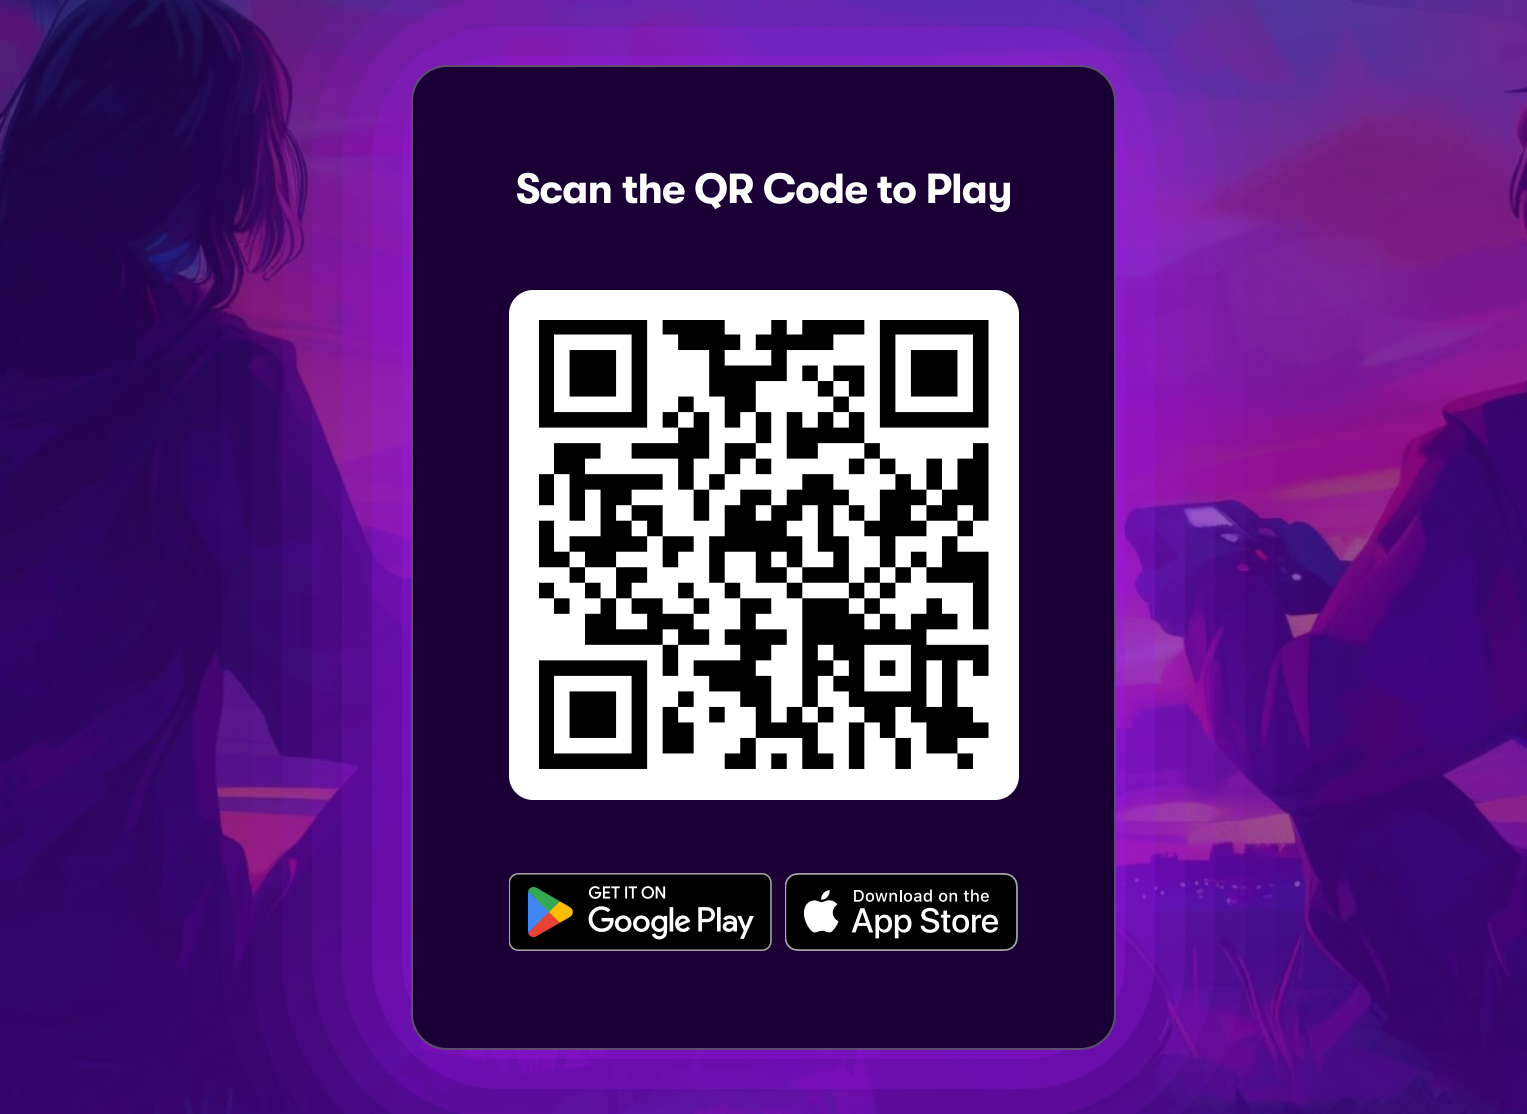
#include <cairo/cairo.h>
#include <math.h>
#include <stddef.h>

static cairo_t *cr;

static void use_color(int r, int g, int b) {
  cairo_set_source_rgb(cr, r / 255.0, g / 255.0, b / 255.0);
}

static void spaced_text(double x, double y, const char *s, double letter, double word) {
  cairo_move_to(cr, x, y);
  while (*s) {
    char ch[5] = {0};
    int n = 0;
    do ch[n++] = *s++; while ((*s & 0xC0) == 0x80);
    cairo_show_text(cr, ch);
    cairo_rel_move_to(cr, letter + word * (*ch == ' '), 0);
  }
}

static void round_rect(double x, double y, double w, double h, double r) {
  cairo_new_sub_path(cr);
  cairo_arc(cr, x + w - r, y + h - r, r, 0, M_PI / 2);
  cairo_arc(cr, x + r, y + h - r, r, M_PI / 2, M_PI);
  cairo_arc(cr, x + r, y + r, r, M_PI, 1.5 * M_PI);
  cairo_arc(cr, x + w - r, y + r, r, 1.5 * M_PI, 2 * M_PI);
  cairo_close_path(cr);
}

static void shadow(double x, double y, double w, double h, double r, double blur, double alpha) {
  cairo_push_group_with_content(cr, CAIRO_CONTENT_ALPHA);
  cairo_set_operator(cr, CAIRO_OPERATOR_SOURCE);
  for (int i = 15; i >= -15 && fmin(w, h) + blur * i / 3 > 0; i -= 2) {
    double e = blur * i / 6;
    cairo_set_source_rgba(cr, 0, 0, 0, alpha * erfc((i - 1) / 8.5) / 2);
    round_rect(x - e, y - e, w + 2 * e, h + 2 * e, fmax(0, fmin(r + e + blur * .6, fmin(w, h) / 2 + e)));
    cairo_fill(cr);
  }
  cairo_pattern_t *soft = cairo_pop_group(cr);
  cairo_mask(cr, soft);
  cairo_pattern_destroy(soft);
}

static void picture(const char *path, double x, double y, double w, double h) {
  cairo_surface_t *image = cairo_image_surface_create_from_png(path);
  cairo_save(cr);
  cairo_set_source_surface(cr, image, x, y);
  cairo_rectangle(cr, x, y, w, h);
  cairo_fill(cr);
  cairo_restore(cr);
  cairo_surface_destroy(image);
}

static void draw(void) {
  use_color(255, 255, 255);
  cairo_paint(cr);
  picture("img_01.png", 0, 0, 1527, 1114);
  use_color(156, 23, 234);
  shadow(387, 41, 753, 1033, 60, 90, 1);
  use_color(27, 0, 54);
  round_rect(412, 66, 703, 983, 35);
  cairo_fill_preserve(cr);
  use_color(93, 78, 112);
  cairo_stroke(cr);
  use_color(255, 255, 255);
  round_rect(509, 290, 510, 510, 24);
  cairo_fill(cr);
  picture("img_02.png", 539, 320, 450, 449);
  picture("img_03.png", 509, 873, 263, 78);
  picture("img_04.png", 785, 873, 233, 78);
  cairo_select_font_face(cr, "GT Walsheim", CAIRO_FONT_SLANT_NORMAL, CAIRO_FONT_WEIGHT_BOLD);
  cairo_set_font_size(cr, 42);
  spaced_text(516, 203, "Scan the QR Code to Play", -0.8, 0);
}

int main(void) {
  cairo_surface_t *surface = cairo_image_surface_create(CAIRO_FORMAT_RGB24, 1527, 1114);
  cr = cairo_create(surface);
  cairo_font_options_t *options = cairo_font_options_create();
  cairo_font_options_set_hint_metrics(options, CAIRO_HINT_METRICS_OFF);
  cairo_font_options_set_hint_style(options, CAIRO_HINT_STYLE_NONE);
  cairo_set_font_options(cr, options);
  cairo_set_miter_limit(cr, 4);
  draw();
  cairo_surface_write_to_png(surface, "out.png");
  cairo_font_options_destroy(options);
  cairo_destroy(cr);
  cairo_surface_destroy(surface);
  return 0;
}
